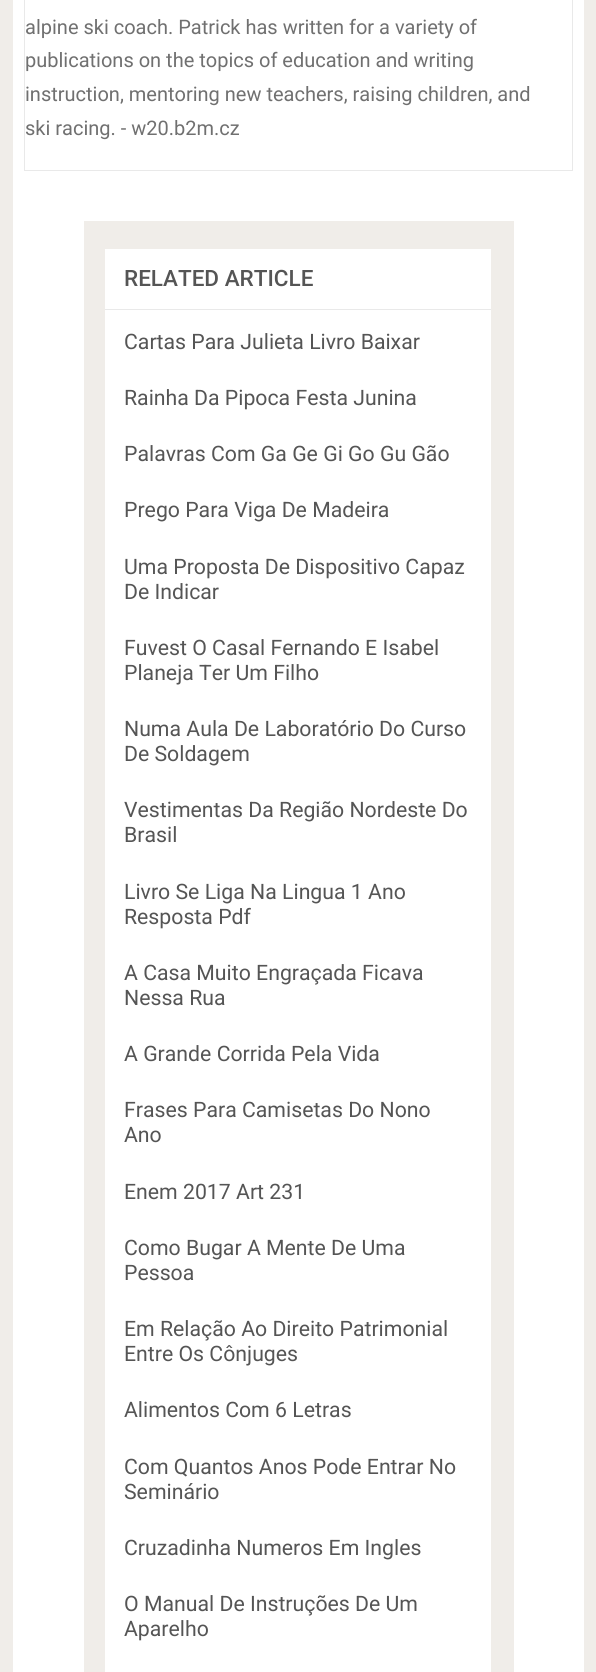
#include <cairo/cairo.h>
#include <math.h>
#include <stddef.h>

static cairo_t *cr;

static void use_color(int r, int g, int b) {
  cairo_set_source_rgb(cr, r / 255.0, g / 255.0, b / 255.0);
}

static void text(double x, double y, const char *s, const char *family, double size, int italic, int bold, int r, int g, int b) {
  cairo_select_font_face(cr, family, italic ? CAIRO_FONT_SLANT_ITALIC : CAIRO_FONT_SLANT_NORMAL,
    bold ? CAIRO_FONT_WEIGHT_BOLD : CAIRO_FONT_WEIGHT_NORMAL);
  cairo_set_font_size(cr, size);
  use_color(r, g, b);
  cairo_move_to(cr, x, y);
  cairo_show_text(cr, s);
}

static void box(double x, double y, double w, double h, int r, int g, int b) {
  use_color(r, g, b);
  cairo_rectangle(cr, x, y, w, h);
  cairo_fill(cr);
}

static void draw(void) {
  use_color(240, 237, 233);
  cairo_paint(cr);
  box(13, 0, 571, 1672, 255, 255, 255);
  cairo_rectangle(cr, 24.5, -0.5, 548, 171);
  use_color(233, 233, 233);
  cairo_set_line_width(cr, 1);
  cairo_stroke(cr);
  box(84, 221, 430, 1451, 240, 237, 233);
  box(105, 249, 386, 1423, 255, 255, 255);
  box(105, 309, 386, 1, 233, 233, 233);
  text(25, 34, "alpine ski coach. Patrick has written for a variety of", "Roboto", 20, 0, 0, 112, 112, 112);
  text(25, 67, "publications on the topics of education and writing", "Roboto", 20, 0, 0, 112, 112, 112);
  text(25, 101, "instruction, mentoring new teachers, raising children, and", "Roboto", 20, 0, 0, 112, 112, 112);
  text(25, 135, "ski racing. - w20.b2m.cz", "Roboto", 20, 0, 0, 112, 112, 112);
  text(124, 286, "RELATED ARTICLE", "Roboto Medium", 22.5, 0, 0, 85, 85, 85);
  text(124, 349, "Cartas Para Julieta Livro Baixar", "Roboto", 21.25, 0, 0, 85, 85, 85);
  text(124, 405, "Rainha Da Pipoca Festa Junina", "Roboto", 21.25, 0, 0, 85, 85, 85);
  text(124, 461, "Palavras Com Ga Ge Gi Go Gu Gão", "Roboto", 21.25, 0, 0, 85, 85, 85);
  text(124, 517, "Prego Para Viga De Madeira", "Roboto", 21.25, 0, 0, 85, 85, 85);
  text(124, 574, "Uma Proposta De Dispositivo Capaz", "Roboto", 21.25, 0, 0, 85, 85, 85);
  text(124, 599, "De Indicar", "Roboto", 21.25, 0, 0, 85, 85, 85);
  text(124, 655, "Fuvest O Casal Fernando E Isabel", "Roboto", 21.25, 0, 0, 85, 85, 85);
  text(124, 680, "Planeja Ter Um Filho", "Roboto", 21.25, 0, 0, 85, 85, 85);
  text(124, 736, "Numa Aula De Laboratório Do Curso", "Roboto", 21.25, 0, 0, 85, 85, 85);
  text(124, 761, "De Soldagem", "Roboto", 21.25, 0, 0, 85, 85, 85);
  text(124, 817, "Vestimentas Da Região Nordeste Do", "Roboto", 21.25, 0, 0, 85, 85, 85);
  text(124, 842, "Brasil", "Roboto", 21.25, 0, 0, 85, 85, 85);
  text(124, 899, "Livro Se Liga Na Lingua 1 Ano", "Roboto", 21.25, 0, 0, 85, 85, 85);
  text(124, 924, "Resposta Pdf", "Roboto", 21.25, 0, 0, 85, 85, 85);
  text(124, 980, "A Casa Muito Engraçada Ficava", "Roboto", 21.25, 0, 0, 85, 85, 85);
  text(124, 1005, "Nessa Rua", "Roboto", 21.25, 0, 0, 85, 85, 85);
  text(124, 1061, "A Grande Corrida Pela Vida", "Roboto", 21.25, 0, 0, 85, 85, 85);
  text(124, 1117, "Frases Para Camisetas Do Nono", "Roboto", 21.25, 0, 0, 85, 85, 85);
  text(124, 1142, "Ano", "Roboto", 21.25, 0, 0, 85, 85, 85);
  text(124, 1199, "Enem 2017 Art 231", "Roboto", 21.25, 0, 0, 85, 85, 85);
  text(124, 1255, "Como Bugar A Mente De Uma", "Roboto", 21.25, 0, 0, 85, 85, 85);
  text(124, 1280, "Pessoa", "Roboto", 21.25, 0, 0, 85, 85, 85);
  text(124, 1336, "Em Relação Ao Direito Patrimonial", "Roboto", 21.25, 0, 0, 85, 85, 85);
  text(124, 1361, "Entre Os Cônjuges", "Roboto", 21.25, 0, 0, 85, 85, 85);
  text(124, 1417, "Alimentos Com 6 Letras", "Roboto", 21.25, 0, 0, 85, 85, 85);
  text(124, 1474, "Com Quantos Anos Pode Entrar No", "Roboto", 21.25, 0, 0, 85, 85, 85);
  text(124, 1499, "Seminário", "Roboto", 21.25, 0, 0, 85, 85, 85);
  text(124, 1555, "Cruzadinha Numeros Em Ingles", "Roboto", 21.25, 0, 0, 85, 85, 85);
  text(124, 1611, "O Manual De Instruções De Um", "Roboto", 21.25, 0, 0, 85, 85, 85);
  text(124, 1636, "Aparelho", "Roboto", 21.25, 0, 0, 85, 85, 85);
}

int main(void) {
  cairo_surface_t *surface = cairo_image_surface_create(CAIRO_FORMAT_RGB24, 596, 1672);
  cr = cairo_create(surface);
  cairo_font_options_t *options = cairo_font_options_create();
  cairo_font_options_set_hint_metrics(options, CAIRO_HINT_METRICS_OFF);
  cairo_font_options_set_hint_style(options, CAIRO_HINT_STYLE_NONE);
  cairo_set_font_options(cr, options);
  cairo_set_miter_limit(cr, 4);
  draw();
  cairo_surface_write_to_png(surface, "out.png");
  cairo_font_options_destroy(options);
  cairo_destroy(cr);
  cairo_surface_destroy(surface);
  return 0;
}
